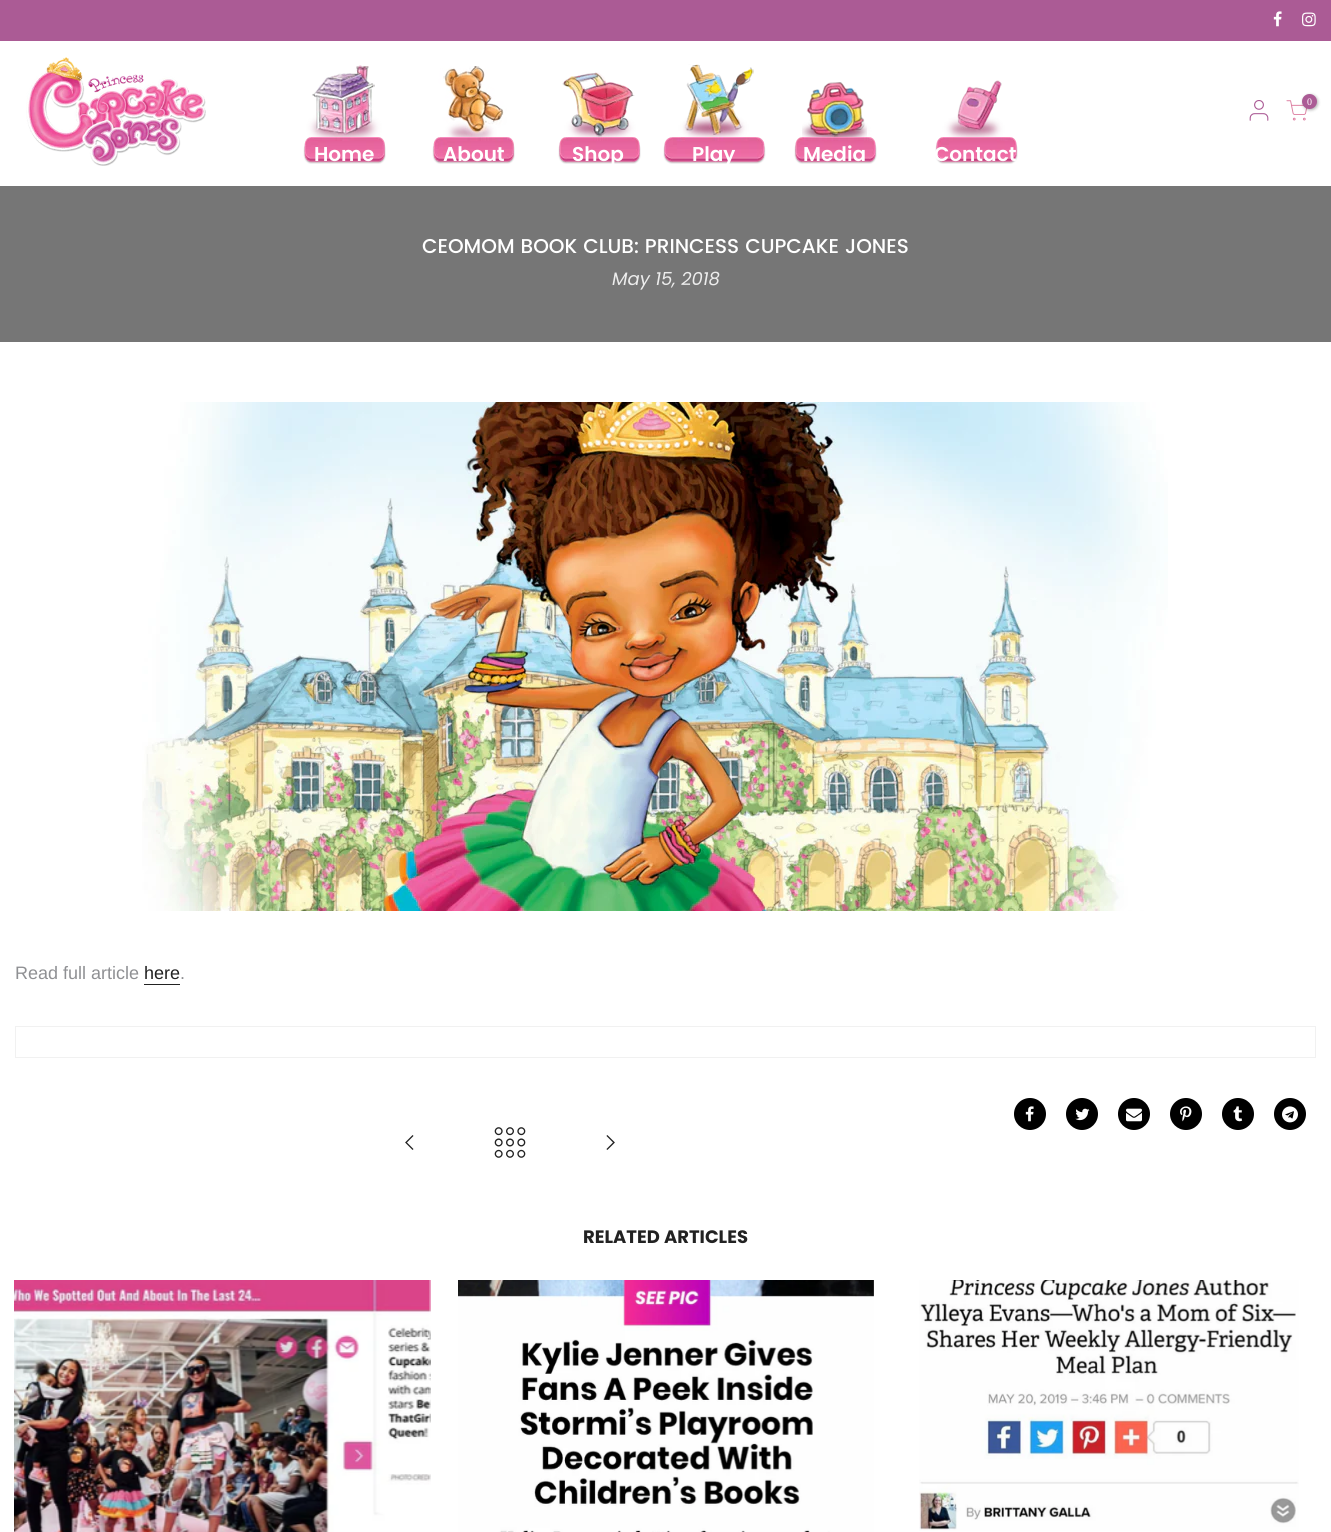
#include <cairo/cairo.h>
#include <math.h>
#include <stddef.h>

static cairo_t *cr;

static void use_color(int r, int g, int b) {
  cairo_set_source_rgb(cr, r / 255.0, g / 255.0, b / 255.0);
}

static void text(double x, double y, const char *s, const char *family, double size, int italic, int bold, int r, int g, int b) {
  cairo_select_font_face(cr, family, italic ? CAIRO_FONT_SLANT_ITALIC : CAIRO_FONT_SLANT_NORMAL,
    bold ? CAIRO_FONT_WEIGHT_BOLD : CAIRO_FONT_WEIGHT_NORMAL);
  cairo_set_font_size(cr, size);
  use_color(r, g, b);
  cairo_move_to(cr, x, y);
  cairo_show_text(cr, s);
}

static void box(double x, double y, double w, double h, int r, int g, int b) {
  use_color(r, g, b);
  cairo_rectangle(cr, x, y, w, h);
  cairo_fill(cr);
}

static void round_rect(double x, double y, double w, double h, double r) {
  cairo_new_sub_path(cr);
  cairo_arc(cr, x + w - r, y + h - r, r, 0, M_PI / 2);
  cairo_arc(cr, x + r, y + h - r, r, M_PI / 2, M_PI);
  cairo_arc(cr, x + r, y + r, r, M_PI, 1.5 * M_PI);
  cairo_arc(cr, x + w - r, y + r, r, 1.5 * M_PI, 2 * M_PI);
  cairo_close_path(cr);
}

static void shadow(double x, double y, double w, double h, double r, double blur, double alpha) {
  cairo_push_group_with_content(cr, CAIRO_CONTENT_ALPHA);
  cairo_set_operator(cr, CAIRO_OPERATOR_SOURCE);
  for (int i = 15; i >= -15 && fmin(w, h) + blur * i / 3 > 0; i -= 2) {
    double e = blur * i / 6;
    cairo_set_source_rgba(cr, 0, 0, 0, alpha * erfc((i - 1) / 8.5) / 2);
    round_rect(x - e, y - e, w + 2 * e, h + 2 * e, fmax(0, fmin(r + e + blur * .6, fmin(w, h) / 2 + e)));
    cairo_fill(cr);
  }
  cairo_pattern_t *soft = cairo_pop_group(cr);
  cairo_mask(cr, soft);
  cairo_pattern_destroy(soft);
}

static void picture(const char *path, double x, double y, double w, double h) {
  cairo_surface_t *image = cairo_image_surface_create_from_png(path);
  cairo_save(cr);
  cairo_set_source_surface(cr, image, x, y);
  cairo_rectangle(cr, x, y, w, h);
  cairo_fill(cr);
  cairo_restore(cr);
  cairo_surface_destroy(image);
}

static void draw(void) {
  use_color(255, 255, 255);
  cairo_paint(cr);
  box(0, 0, 1331, 41, 171, 91, 149);
  picture("img_01.png", 1273, 11, 9, 16);
  picture("img_02.png", 1302, 12, 14, 15);
  picture("img_03.png", 26, 57, 180, 109);
  picture("img_04.png", 1249, 100, 20, 21);
  picture("img_05.png", 1286, 100, 21, 21);
  use_color(0, 0, 0);
  shadow(1303, 95, 15, 15, 7.5, 1.5, 0.3);
  use_color(171, 91, 149);
  cairo_arc(cr, 1309.5, 101.5, 7.5, 0, 2 * M_PI);
  cairo_fill(cr);
  picture("img_06.png", 303, 65, 83, 99);
  picture("img_07.png", 432, 66, 83, 98);
  picture("img_08.png", 558, 72, 83, 92);
  picture("img_09.png", 663, 64, 103, 100);
  picture("img_10.png", 794, 82, 83, 82);
  picture("img_11.png", 935, 80, 83, 84);
  box(0, 186, 1331, 156, 118, 118, 118);
  picture("img_12.png", 142, 402, 1026, 509);
  box(144, 984, 36, 1, 34, 34, 34);
  cairo_rectangle(cr, 15.5, 1026.5, 1300, 31);
  use_color(241, 241, 241);
  cairo_set_line_width(cr, 1);
  cairo_stroke(cr);
  use_color(0, 0, 0);
  cairo_arc(cr, 1030, 1114, 16, 0, 2 * M_PI);
  cairo_fill(cr);
  picture("img_13.png", 1025, 1106, 9, 16);
  cairo_arc(cr, 1082, 1114, 16, 0, 2 * M_PI);
  cairo_fill(cr);
  picture("img_14.png", 1075, 1108, 15, 13);
  cairo_arc(cr, 1134, 1114, 16, 0, 2 * M_PI);
  cairo_fill(cr);
  picture("img_15.png", 1126, 1108, 16, 14);
  cairo_arc(cr, 1186, 1114, 16, 0, 2 * M_PI);
  cairo_fill(cr);
  picture("img_16.png", 1180, 1106, 12, 16);
  cairo_arc(cr, 1238, 1114, 16, 0, 2 * M_PI);
  cairo_fill(cr);
  picture("img_17.png", 1233, 1106, 10, 16);
  cairo_arc(cr, 1290, 1114, 16, 0, 2 * M_PI);
  cairo_fill(cr);
  picture("img_18.png", 1282, 1106, 16, 17);
  picture("img_19.png", 405, 1135, 9, 15);
  picture("img_20.png", 494, 1127, 32, 31);
  picture("img_21.png", 606, 1135, 9, 15);
  picture("img_22.png", 14, 1280, 417, 252);
  picture("img_23.png", 458, 1280, 416, 252);
  picture("img_24.png", 919, 1280, 380, 251);
  text(1307, 105, "0", "Liberation Serif", 10, 0, 0, 255, 255, 255);
  text(314, 161, "Home", "Poppins SemiBold", 20, 0, 0, 255, 255, 255);
  text(443, 161, "About", "Poppins SemiBold", 20, 0, 0, 255, 255, 255);
  text(572, 161, "Shop", "Poppins SemiBold", 20, 0, 0, 255, 255, 255);
  text(692, 161, "Play", "Poppins SemiBold", 20, 0, 0, 255, 255, 255);
  text(803, 161, "Media", "Poppins SemiBold", 20, 0, 0, 255, 255, 255);
  text(934, 161, "Contact", "Poppins SemiBold", 20, 0, 0, 255, 255, 255);
  text(422, 253, "CEOMOM BOOK CLUB: PRINCESS CUPCAKE JONES", "Poppins Medium", 20, 0, 0, 255, 255, 255);
  text(612, 285, "May 15, 2018", "Poppins", 18, 1, 0, 237, 237, 237);
  text(15, 979, "Read full article", "Liberation Sans", 18, 0, 0, 143, 144, 147);
  text(144, 979, "here", "Liberation Sans", 18, 0, 0, 34, 34, 34);
  text(180, 979, ".", "Liberation Sans", 18, 0, 0, 143, 144, 147);
  text(583, 1243, "RELATED ARTICLES", "Poppins", 18, 0, 1, 34, 34, 34);
}

int main(void) {
  cairo_surface_t *surface = cairo_image_surface_create(CAIRO_FORMAT_RGB24, 1331, 1532);
  cr = cairo_create(surface);
  cairo_font_options_t *options = cairo_font_options_create();
  cairo_font_options_set_hint_metrics(options, CAIRO_HINT_METRICS_OFF);
  cairo_font_options_set_hint_style(options, CAIRO_HINT_STYLE_NONE);
  cairo_set_font_options(cr, options);
  cairo_set_miter_limit(cr, 4);
  draw();
  cairo_surface_write_to_png(surface, "out.png");
  cairo_font_options_destroy(options);
  cairo_destroy(cr);
  cairo_surface_destroy(surface);
  return 0;
}
